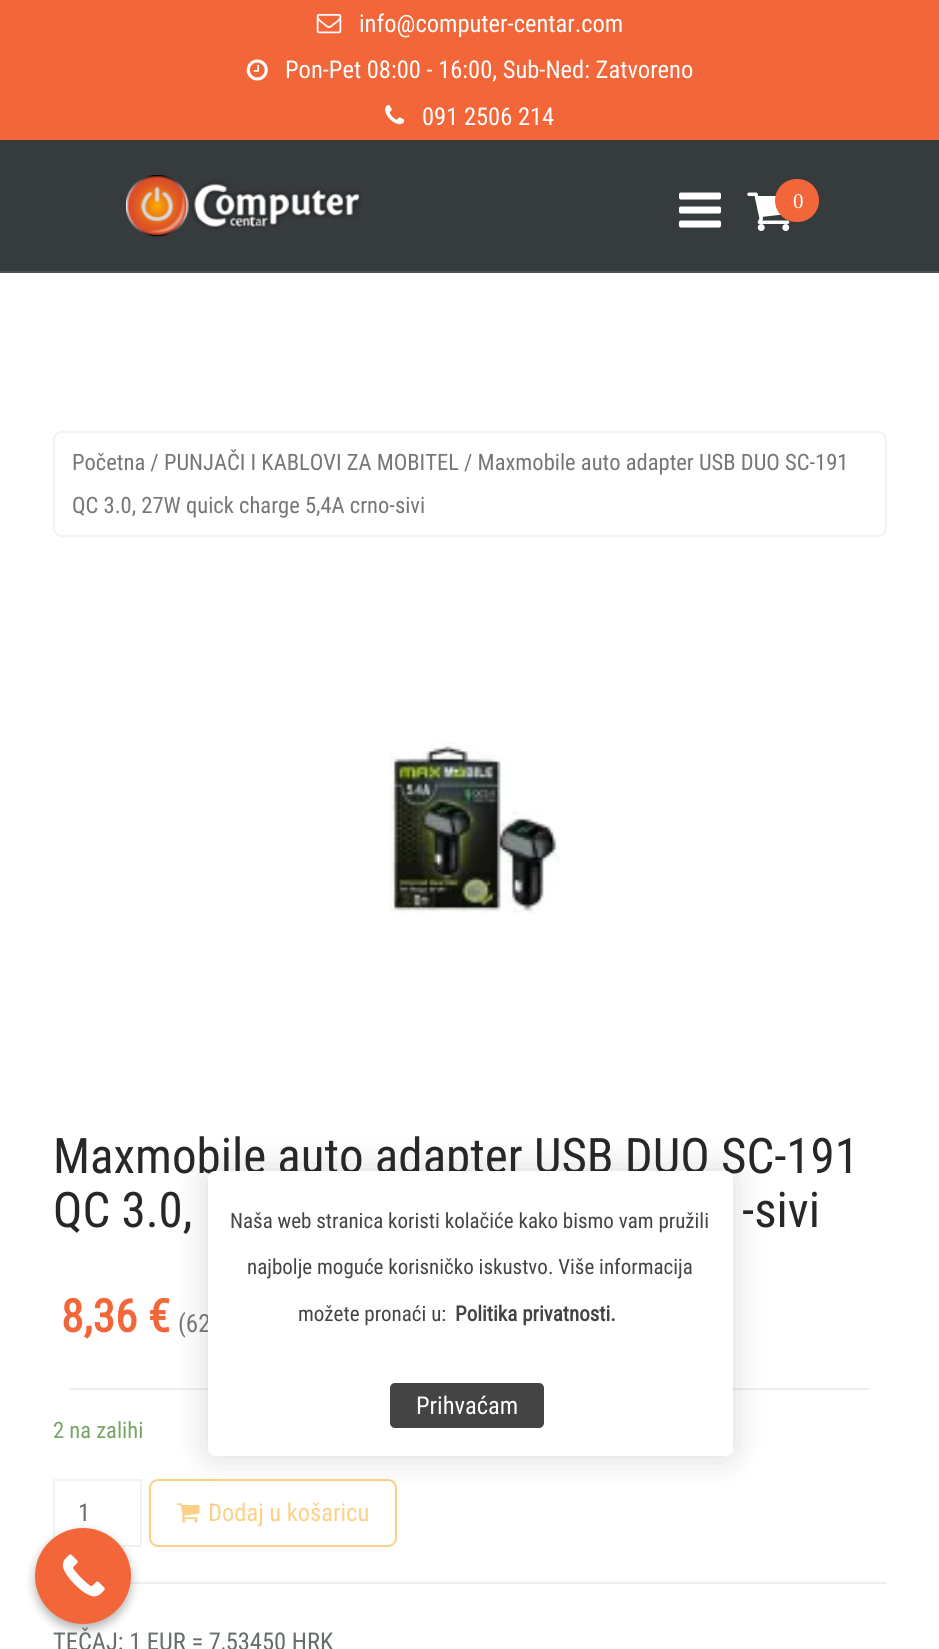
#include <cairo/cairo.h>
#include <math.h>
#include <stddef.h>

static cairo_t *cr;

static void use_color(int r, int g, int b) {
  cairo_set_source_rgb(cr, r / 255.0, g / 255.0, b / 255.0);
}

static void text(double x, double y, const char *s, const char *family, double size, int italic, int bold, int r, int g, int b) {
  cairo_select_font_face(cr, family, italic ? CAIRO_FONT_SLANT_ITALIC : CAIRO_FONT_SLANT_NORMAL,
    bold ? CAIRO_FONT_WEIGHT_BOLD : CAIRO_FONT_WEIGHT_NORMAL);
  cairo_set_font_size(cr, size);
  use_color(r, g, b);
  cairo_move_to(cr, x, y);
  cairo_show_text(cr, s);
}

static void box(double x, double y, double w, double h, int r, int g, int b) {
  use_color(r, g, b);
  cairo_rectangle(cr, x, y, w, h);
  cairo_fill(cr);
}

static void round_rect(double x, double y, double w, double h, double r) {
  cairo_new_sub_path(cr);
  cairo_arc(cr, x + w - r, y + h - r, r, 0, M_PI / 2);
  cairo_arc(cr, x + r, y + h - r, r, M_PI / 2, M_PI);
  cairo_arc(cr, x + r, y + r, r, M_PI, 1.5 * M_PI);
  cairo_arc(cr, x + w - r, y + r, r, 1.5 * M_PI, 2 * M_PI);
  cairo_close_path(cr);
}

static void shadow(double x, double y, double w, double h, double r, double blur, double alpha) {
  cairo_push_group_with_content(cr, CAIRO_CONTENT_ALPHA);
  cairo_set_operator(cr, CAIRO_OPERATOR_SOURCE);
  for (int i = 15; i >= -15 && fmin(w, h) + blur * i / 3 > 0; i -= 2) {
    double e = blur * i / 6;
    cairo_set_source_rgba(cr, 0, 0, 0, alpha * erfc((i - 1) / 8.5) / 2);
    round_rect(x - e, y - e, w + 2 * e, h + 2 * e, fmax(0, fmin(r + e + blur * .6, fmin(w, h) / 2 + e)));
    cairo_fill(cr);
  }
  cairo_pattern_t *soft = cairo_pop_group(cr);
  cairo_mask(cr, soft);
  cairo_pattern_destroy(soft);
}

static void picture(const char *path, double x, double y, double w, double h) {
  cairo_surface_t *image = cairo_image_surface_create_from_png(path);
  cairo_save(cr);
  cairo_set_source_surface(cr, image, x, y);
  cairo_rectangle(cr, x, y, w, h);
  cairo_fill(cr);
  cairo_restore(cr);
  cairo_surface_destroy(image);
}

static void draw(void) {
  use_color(255, 255, 255);
  cairo_paint(cr);
  box(0, 140, 939, 131, 54, 59, 62);
  box(0, 271, 939, 2, 74, 79, 81);
  box(0, 0, 939, 140, 243, 102, 57);
  picture("img_01.png", 316, 14, 26, 20);
  picture("img_02.png", 246, 59, 22, 22);
  picture("img_03.png", 385, 105, 20, 20);
  picture("img_04.png", 126, 175, 236, 62);
  picture("img_05.png", 679, 192, 42, 36);
  picture("img_06.png", 747, 192, 43, 39);
  round_rect(775, 179, 44, 43, 21.5);
  cairo_fill(cr);
  round_rect(54, 432, 832, 104, 8);
  use_color(242, 242, 243);
  cairo_stroke(cr);
  picture("img_07.png", 389, 742, 171, 173);
  box(70, 1388, 800, 2, 238, 238, 238);
  cairo_rectangle(cr, 54, 1480, 87, 66);
  use_color(242, 242, 243);
  cairo_stroke(cr);
  round_rect(150, 1480, 246, 66, 8);
  use_color(252, 208, 136);
  cairo_stroke(cr);
  picture("img_08.png", 176, 1503, 24, 20);
  box(130, 1582, 757, 2, 238, 238, 238);
  use_color(0, 0, 0);
  shadow(208, 1171, 525, 285, 7, 17.5, 0.15);
  shadow(35, 1533, 96, 96, 48, 5, 0.3);
  use_color(243, 102, 57);
  cairo_arc(cr, 83, 1576, 48, 0, 2 * M_PI);
  cairo_fill(cr);
  picture("img_09.png", 62, 1554, 43, 43);
  text(359, 32, "info@computer-centar.com", "Roboto Condensed", 24.5, 0, 0, 255, 255, 255);
  text(285, 78, "Pon-Pet 08:00 - 16:00, Sub-Ned: Zatvoreno", "Roboto Condensed", 24.5, 0, 0, 255, 255, 255);
  text(422, 125, "091 2506 214", "Roboto Condensed", 24.5, 0, 0, 255, 255, 255);
  text(793, 208, "0", "Liberation Serif", 21, 0, 0, 255, 255, 255);
  text(72, 470, "Početna / PUNJAČI I KABLOVI ZA MOBITEL / Maxmobile auto adapter USB DUO SC-191", "Roboto Condensed", 22.55, 0, 0, 118, 118, 118);
  text(72, 513, "QC 3.0, 27W quick charge 5,4A crno-sivi", "Roboto Condensed", 22.55, 0, 0, 118, 118, 118);
  text(53, 1173, "Maxmobile auto adapter USB DUO SC-191", "Roboto Condensed", 49, 0, 0, 39, 39, 39);
  text(53, 1227, "QC 3.0,", "Roboto Condensed", 49, 0, 0, 39, 39, 39);
  text(742, 1227, "-sivi", "Roboto Condensed", 49, 0, 0, 39, 39, 39);
  text(61, 1332, "8,36 €", "Roboto Condensed", 45.5, 0, 1, 243, 102, 57);
  text(178, 1332, "(62", "Roboto Condensed", 25, 0, 0, 118, 118, 118);
  text(53, 1438, "2 na zalihi", "Roboto Condensed", 22.55, 0, 0, 119, 164, 100);
  text(78, 1521, "1", "Roboto Condensed", 24.5, 0, 0, 101, 109, 109);
  text(208, 1521, "Dodaj u košaricu", "Roboto Condensed", 24.5, 0, 0, 252, 208, 136);
  text(53, 1650, "TEČAJ: 1 EUR = 7,53450 HRK", "Roboto Condensed", 24.5, 0, 0, 101, 109, 109);
  use_color(255, 255, 255);
  round_rect(208, 1171, 525, 285, 7);
  cairo_fill(cr);
  text(230, 1228, "Naša web stranica koristi kolačiće kako bismo vam pružili", "Roboto Condensed", 21, 0, 0, 68, 68, 68);
  text(247, 1274, "najbolje moguće korisničko iskustvo. Više informacija", "Roboto Condensed", 21, 0, 0, 68, 68, 68);
  text(298, 1321, "možete pronaći u:", "Roboto Condensed", 21, 0, 0, 68, 68, 68);
  text(455, 1321, "Politika privatnosti.", "Roboto Condensed", 21, 0, 1, 68, 68, 68);
  round_rect(390, 1383, 154, 45, 5);
  cairo_fill(cr);
  text(416, 1414, "Prihvaćam", "Roboto Condensed", 24.5, 0, 0, 255, 255, 255);
}

int main(void) {
  cairo_surface_t *surface = cairo_image_surface_create(CAIRO_FORMAT_RGB24, 939, 1649);
  cr = cairo_create(surface);
  cairo_font_options_t *options = cairo_font_options_create();
  cairo_font_options_set_hint_metrics(options, CAIRO_HINT_METRICS_OFF);
  cairo_font_options_set_hint_style(options, CAIRO_HINT_STYLE_NONE);
  cairo_set_font_options(cr, options);
  cairo_set_miter_limit(cr, 4);
  draw();
  cairo_surface_write_to_png(surface, "out.png");
  cairo_font_options_destroy(options);
  cairo_destroy(cr);
  cairo_surface_destroy(surface);
  return 0;
}
